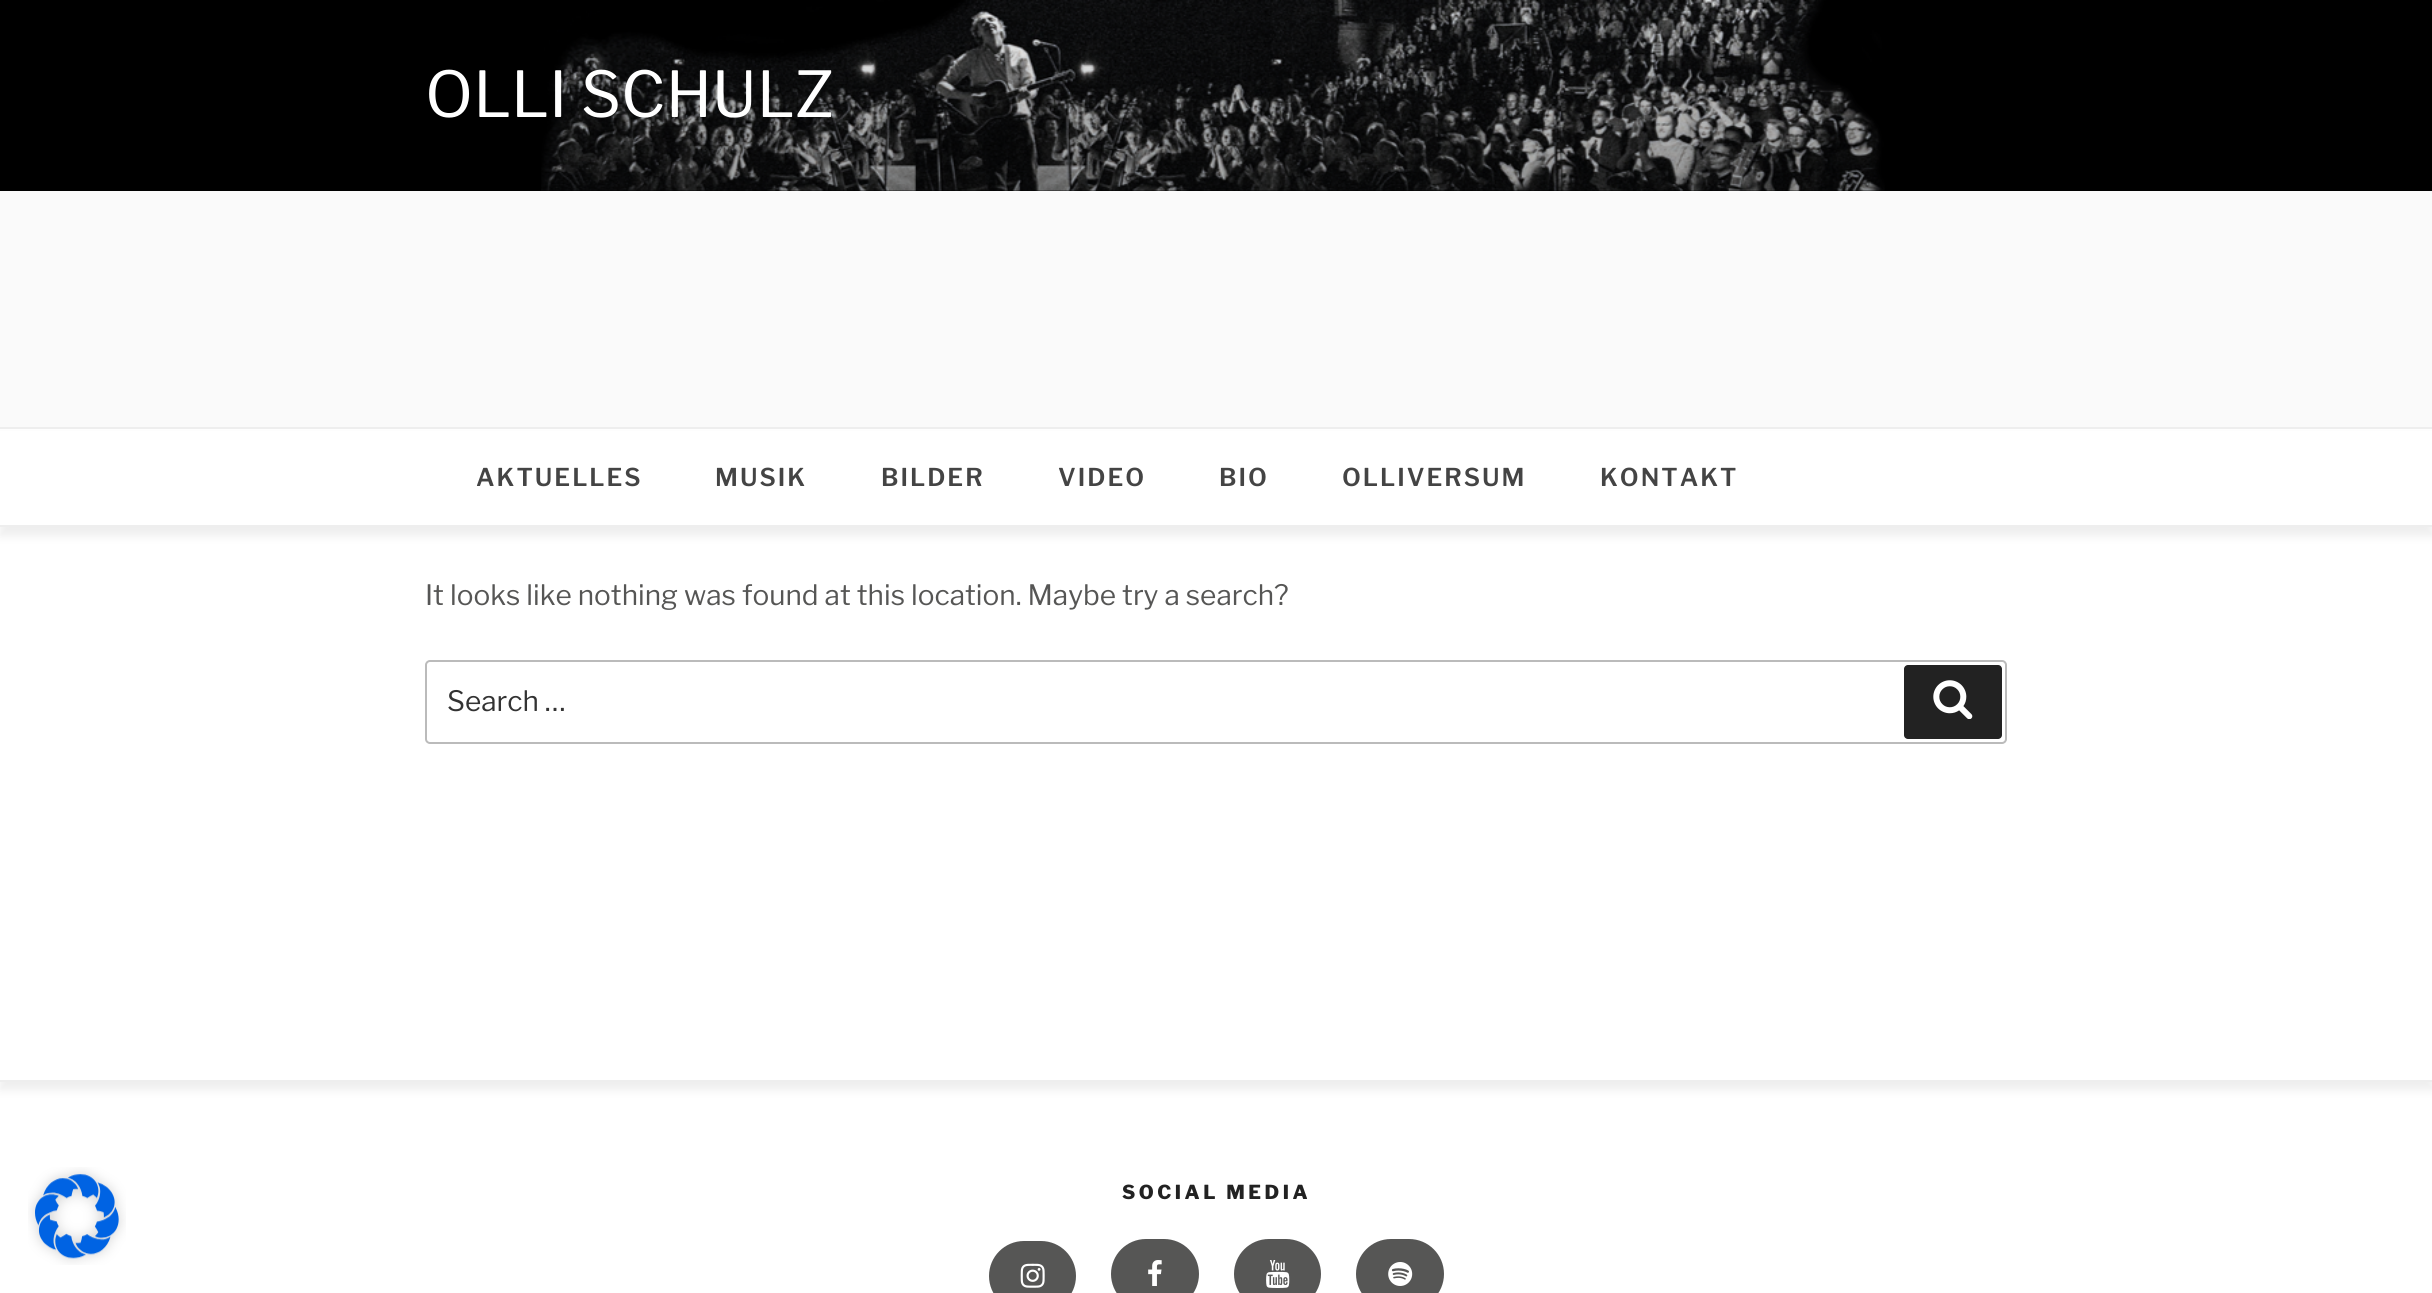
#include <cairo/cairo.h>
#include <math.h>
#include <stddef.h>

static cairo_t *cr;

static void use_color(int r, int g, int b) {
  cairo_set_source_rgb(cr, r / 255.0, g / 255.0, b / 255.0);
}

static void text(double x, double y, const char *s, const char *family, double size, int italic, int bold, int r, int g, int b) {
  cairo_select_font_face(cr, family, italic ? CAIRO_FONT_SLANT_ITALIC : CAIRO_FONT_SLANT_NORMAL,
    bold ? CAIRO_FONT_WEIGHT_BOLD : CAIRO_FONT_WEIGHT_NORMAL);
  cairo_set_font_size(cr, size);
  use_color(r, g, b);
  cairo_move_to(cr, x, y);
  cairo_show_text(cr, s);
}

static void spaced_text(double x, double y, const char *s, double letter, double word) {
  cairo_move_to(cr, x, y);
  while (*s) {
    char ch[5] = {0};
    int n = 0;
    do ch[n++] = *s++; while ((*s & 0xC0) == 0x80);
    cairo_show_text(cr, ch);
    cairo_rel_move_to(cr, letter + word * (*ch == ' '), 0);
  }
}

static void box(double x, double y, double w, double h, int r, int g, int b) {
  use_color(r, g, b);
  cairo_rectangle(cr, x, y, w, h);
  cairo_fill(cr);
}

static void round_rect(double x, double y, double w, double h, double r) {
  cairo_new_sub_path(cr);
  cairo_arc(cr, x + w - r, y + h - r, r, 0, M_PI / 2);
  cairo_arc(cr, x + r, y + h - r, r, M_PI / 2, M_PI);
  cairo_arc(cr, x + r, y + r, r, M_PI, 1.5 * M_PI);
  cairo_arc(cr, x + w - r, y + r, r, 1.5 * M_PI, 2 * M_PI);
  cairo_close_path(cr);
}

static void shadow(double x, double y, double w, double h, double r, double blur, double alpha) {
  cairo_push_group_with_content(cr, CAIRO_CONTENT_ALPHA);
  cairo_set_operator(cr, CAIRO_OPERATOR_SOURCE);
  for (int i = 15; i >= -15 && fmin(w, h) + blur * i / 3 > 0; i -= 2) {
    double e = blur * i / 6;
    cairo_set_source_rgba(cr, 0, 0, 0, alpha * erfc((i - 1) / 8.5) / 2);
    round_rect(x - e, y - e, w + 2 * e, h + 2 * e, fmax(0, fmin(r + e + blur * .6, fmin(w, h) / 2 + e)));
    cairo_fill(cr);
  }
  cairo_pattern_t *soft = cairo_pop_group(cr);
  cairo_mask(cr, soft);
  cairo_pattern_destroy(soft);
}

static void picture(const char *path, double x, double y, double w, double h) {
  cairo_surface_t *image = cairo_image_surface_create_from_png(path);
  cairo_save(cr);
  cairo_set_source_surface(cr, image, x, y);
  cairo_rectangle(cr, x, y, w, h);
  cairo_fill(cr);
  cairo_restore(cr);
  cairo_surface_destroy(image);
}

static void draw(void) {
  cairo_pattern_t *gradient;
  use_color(255, 255, 255);
  cairo_paint(cr);
  cairo_save(cr);
  cairo_rectangle(cr, 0, 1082, 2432, 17);
  cairo_clip(cr);
  use_color(238, 238, 238);
  shadow(0, 9, 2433, 1081, 0, 4.5, 1);
  cairo_restore(cr);
  box(0, 191, 2432, 236, 250, 250, 250);
  box(0, 0, 2432, 191, 0, 0, 0);
  picture("img_01.png", 541, 0, 1344, 191);
  gradient = cairo_pattern_create_linear(1216, 0, 1216, 191);
  cairo_pattern_add_color_stop_rgba(gradient, 0, 0, 0, 0, 0);
  cairo_pattern_add_color_stop_rgba(gradient, 0.75, 0, 0, 0, 0.3);
  cairo_pattern_add_color_stop_rgba(gradient, 1, 0, 0, 0, 0.3);
  cairo_set_source(cr, gradient);
  cairo_pattern_destroy(gradient);
  cairo_rectangle(cr, 541, 10, 1342, 181);
  cairo_fill(cr);
  use_color(238, 238, 238);
  shadow(0, 436, 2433, 100, 0, 4.5, 1);
  box(0, 431, 2432, 94, 255, 255, 255);
  box(0, 427, 2432, 2, 238, 238, 238);
  box(0, 525, 2432, 2, 238, 238, 238);
  box(0, 1080, 2432, 2, 238, 238, 238);
  round_rect(426, 661, 1580, 82, 4);
  use_color(187, 187, 187);
  cairo_stroke(cr);
  use_color(34, 34, 34);
  round_rect(1904, 665, 98, 74, 4);
  cairo_fill(cr);
  picture("img_02.png", 1933, 680, 40, 39);
  use_color(86, 86, 85);
  round_rect(990, 1242, 85, 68, 34);
  cairo_fill_preserve(cr);
  cairo_stroke(cr);
  picture("img_03.png", 1020, 1263, 25, 25);
  round_rect(1112, 1240, 86, 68, 34);
  cairo_fill_preserve(cr);
  cairo_stroke(cr);
  picture("img_04.png", 1148, 1260, 14, 26);
  round_rect(1235, 1240, 85, 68, 34);
  cairo_fill_preserve(cr);
  cairo_stroke(cr);
  picture("img_05.png", 1266, 1260, 24, 28);
  round_rect(1357, 1240, 86, 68, 34);
  cairo_fill_preserve(cr);
  cairo_stroke(cr);
  picture("img_06.png", 1388, 1262, 25, 24);
  picture("img_07.png", 28, 1167, 98, 98);
  text(425, 117, "OLLI SCHULZ", "Libre Franklin Thin", 63, 0, 0, 255, 255, 255);
  cairo_select_font_face(cr, "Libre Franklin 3 Thin", CAIRO_FONT_SLANT_NORMAL, CAIRO_FONT_WEIGHT_NORMAL);
  cairo_set_font_size(cr, 24.5);
  use_color(68, 68, 68);
  spaced_text(476, 486, "AKTUELLES", 2, 0);
  spaced_text(715, 486, "MUSIK", 2, 0);
  spaced_text(881, 486, "BILDER", 2, 0);
  spaced_text(1058, 486, "VIDEO", 2, 0);
  spaced_text(1219, 486, "BIO", 2, 0);
  spaced_text(1342, 486, "OLLIVERSUM", 2, 0);
  spaced_text(1600, 486, "KONTAKT", 2, 0);
  text(425, 605, "It looks like nothing was found at this location. Maybe try a search?", "Libre Franklin Thin", 28, 0, 0, 86, 86, 85);
  text(447, 711, "Search …", "Libre Franklin Thin", 28, 0, 0, 51, 51, 51);
  cairo_select_font_face(cr, "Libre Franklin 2 Thin", CAIRO_FONT_SLANT_NORMAL, CAIRO_FONT_WEIGHT_NORMAL);
  cairo_set_font_size(cr, 19.25);
  use_color(34, 34, 34);
  spaced_text(1122, 1199, "SOCIAL MEDIA", 3.5, 0);
}

int main(void) {
  cairo_surface_t *surface = cairo_image_surface_create(CAIRO_FORMAT_RGB24, 2432, 1293);
  cr = cairo_create(surface);
  cairo_font_options_t *options = cairo_font_options_create();
  cairo_font_options_set_hint_metrics(options, CAIRO_HINT_METRICS_OFF);
  cairo_font_options_set_hint_style(options, CAIRO_HINT_STYLE_NONE);
  cairo_set_font_options(cr, options);
  cairo_set_miter_limit(cr, 4);
  draw();
  cairo_surface_write_to_png(surface, "out.png");
  cairo_font_options_destroy(options);
  cairo_destroy(cr);
  cairo_surface_destroy(surface);
  return 0;
}
